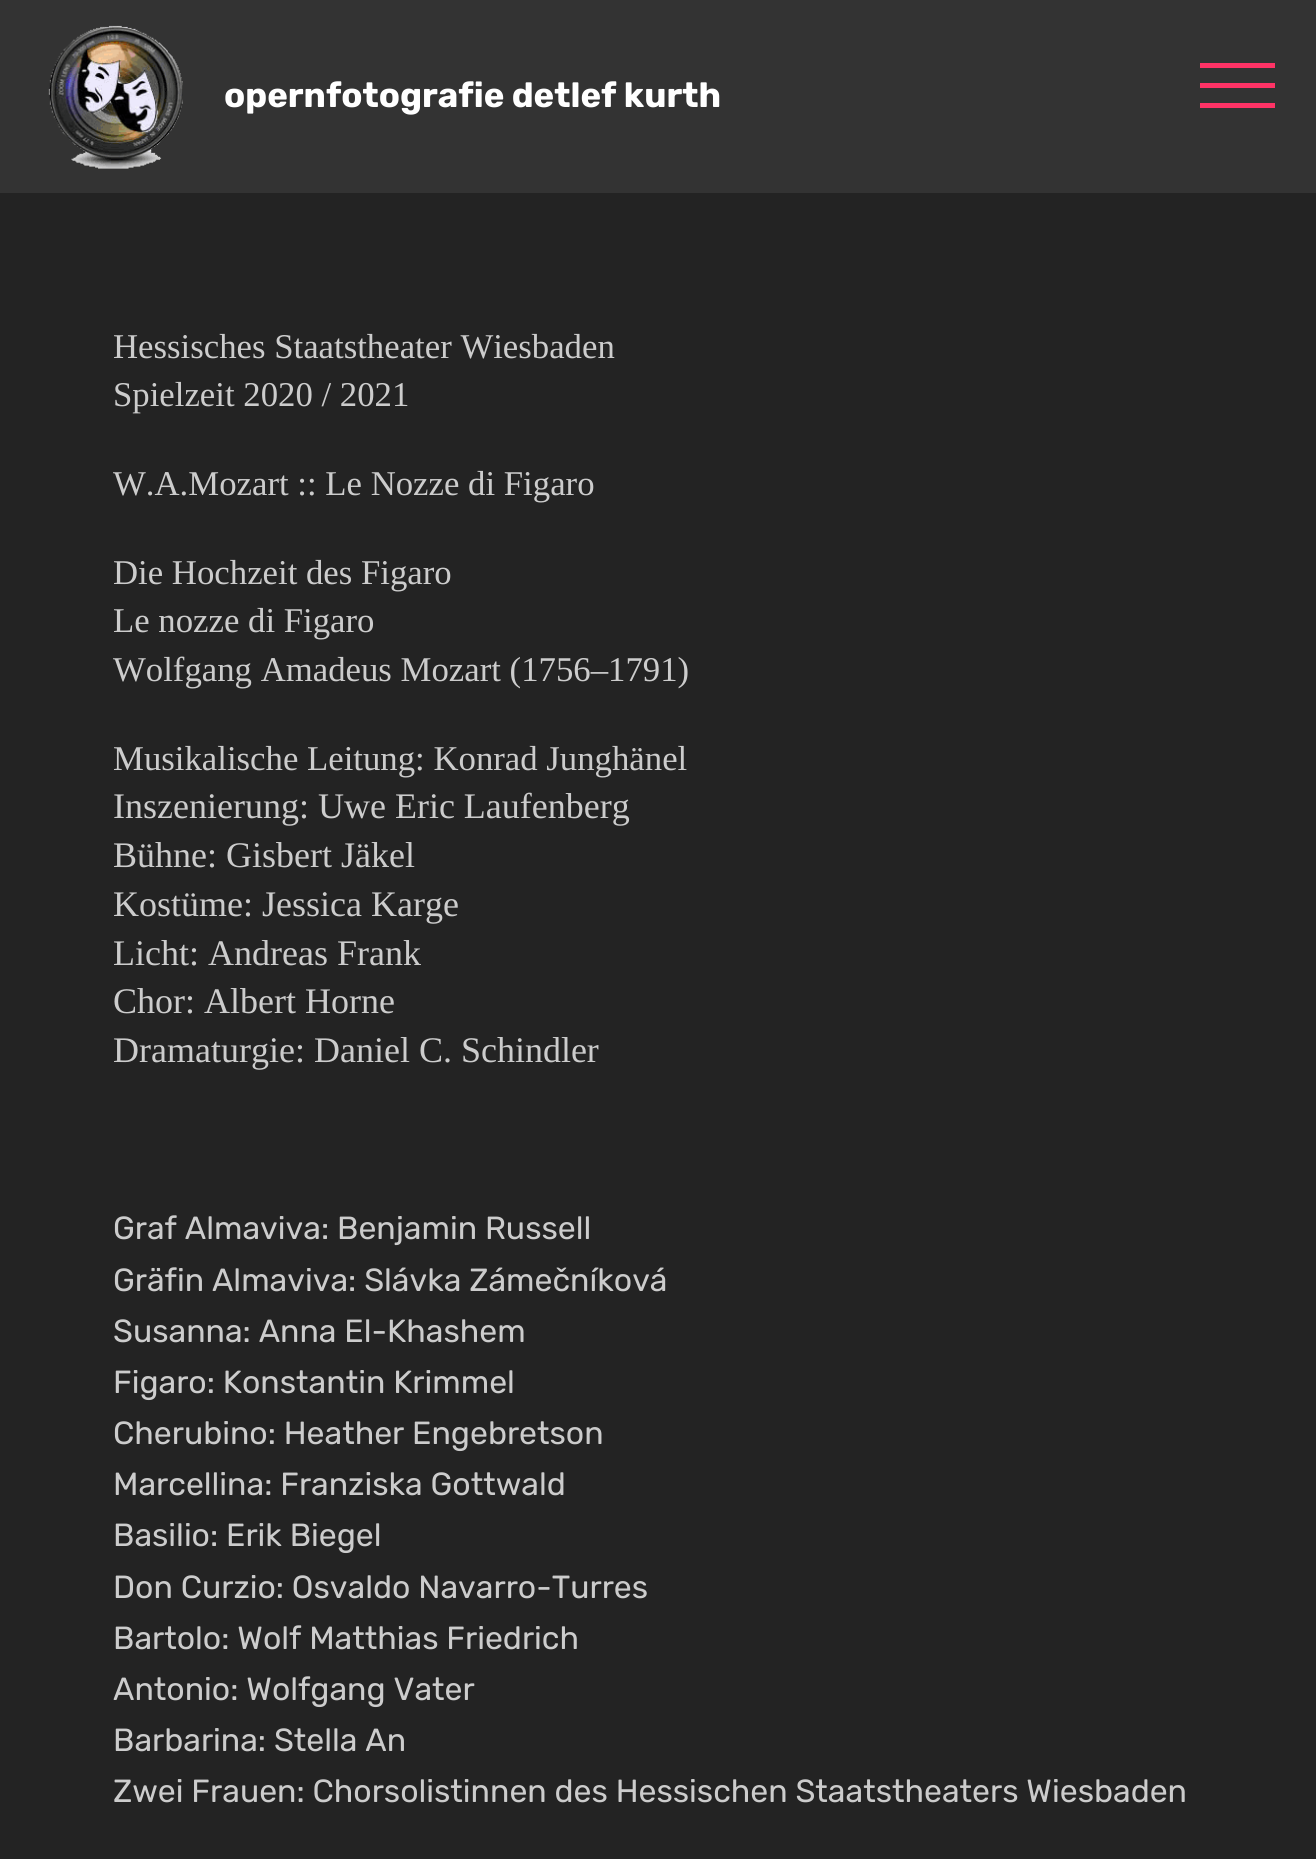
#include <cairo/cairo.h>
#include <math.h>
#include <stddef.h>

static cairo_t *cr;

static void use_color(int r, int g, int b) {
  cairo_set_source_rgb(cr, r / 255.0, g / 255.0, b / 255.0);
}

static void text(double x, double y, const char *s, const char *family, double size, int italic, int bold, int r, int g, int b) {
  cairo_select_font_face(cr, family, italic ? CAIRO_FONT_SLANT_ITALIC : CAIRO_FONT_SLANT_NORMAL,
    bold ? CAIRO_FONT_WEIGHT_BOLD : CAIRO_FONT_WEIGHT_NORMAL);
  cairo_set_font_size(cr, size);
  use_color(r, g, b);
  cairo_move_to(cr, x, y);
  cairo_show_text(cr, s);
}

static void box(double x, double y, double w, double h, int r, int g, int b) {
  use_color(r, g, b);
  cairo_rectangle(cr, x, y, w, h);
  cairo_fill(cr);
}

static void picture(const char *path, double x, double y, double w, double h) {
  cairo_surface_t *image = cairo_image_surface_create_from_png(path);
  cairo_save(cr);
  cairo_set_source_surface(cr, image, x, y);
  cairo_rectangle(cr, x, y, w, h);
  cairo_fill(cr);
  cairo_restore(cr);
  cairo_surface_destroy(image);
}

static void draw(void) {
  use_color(35, 35, 35);
  cairo_paint(cr);
  box(0, 0, 1316, 193, 51, 51, 51);
  picture("img_01.png", 48, 25, 135, 144);
  box(1200, 63, 75, 5, 255, 51, 102);
  box(1200, 83, 75, 5, 255, 51, 102);
  box(1200, 103, 75, 5, 255, 51, 102);
  text(224, 107, "opernfotografie detlef kurth", "Rubik", 34.75, 0, 1, 255, 255, 255);
  text(113, 358, "Hessisches Staatstheater Wiesbaden", "Liberation Serif", 34.75, 0, 0, 204, 204, 204);
  text(113, 406, "Spielzeit 2020 / 2021", "Liberation Serif", 34.75, 0, 0, 204, 204, 204);
  text(113, 495, "W.A.Mozart :: Le Nozze di Figaro", "Liberation Serif", 34.75, 0, 0, 204, 204, 204);
  text(113, 584, "Die Hochzeit des Figaro", "Liberation Serif", 34.75, 0, 0, 204, 204, 204);
  text(113, 632, "Le nozze di Figaro", "Liberation Serif", 34.75, 0, 0, 204, 204, 204);
  text(113, 681, "Wolfgang Amadeus Mozart (1756–1791)", "Liberation Serif", 34.75, 0, 0, 204, 204, 204);
  text(113, 770, "Musikalische Leitung: Konrad Junghänel", "Liberation Serif", 34.75, 0, 0, 204, 204, 204);
  text(113, 818, "Inszenierung: Uwe Eric Laufenberg", "Liberation Serif", 36, 0, 0, 204, 204, 204);
  text(113, 867, "Bühne: Gisbert Jäkel", "Liberation Serif", 36, 0, 0, 204, 204, 204);
  text(113, 916, "Kostüme: Jessica Karge", "Liberation Serif", 36, 0, 0, 204, 204, 204);
  text(113, 965, "Licht: Andreas Frank", "Liberation Serif", 36, 0, 0, 204, 204, 204);
  text(113, 1013, "Chor: Albert Horne", "Liberation Serif", 36, 0, 0, 204, 204, 204);
  text(113, 1062, "Dramaturgie: Daniel C. Schindler", "Liberation Serif", 36, 0, 0, 204, 204, 204);
  text(113, 1239, "Graf Almaviva: Benjamin Russell", "Rubik", 32, 0, 0, 204, 204, 204);
  text(113, 1291, "Gräfin Almaviva: Slávka Zámečníková", "Rubik", 32, 0, 0, 204, 204, 204);
  text(113, 1342, "Susanna: Anna El-Khashem", "Rubik", 32, 0, 0, 204, 204, 204);
  text(113, 1393, "Figaro: Konstantin Krimmel", "Rubik", 32, 0, 0, 204, 204, 204);
  text(113, 1444, "Cherubino: Heather Engebretson", "Rubik", 32, 0, 0, 204, 204, 204);
  text(113, 1495, "Marcellina: Franziska Gottwald", "Rubik", 32, 0, 0, 204, 204, 204);
  text(113, 1546, "Basilio: Erik Biegel", "Rubik", 32, 0, 0, 204, 204, 204);
  text(113, 1598, "Don Curzio: Osvaldo Navarro-Turres", "Rubik", 32, 0, 0, 204, 204, 204);
  text(113, 1649, "Bartolo: Wolf Matthias Friedrich", "Rubik", 32, 0, 0, 204, 204, 204);
  text(113, 1700, "Antonio: Wolfgang Vater", "Rubik", 32, 0, 0, 204, 204, 204);
  text(113, 1751, "Barbarina: Stella An", "Rubik", 32, 0, 0, 204, 204, 204);
  text(113, 1802, "Zwei Frauen: Chorsolistinnen des Hessischen Staatstheaters Wiesbaden", "Rubik", 32, 0, 0, 204, 204, 204);
}

int main(void) {
  cairo_surface_t *surface = cairo_image_surface_create(CAIRO_FORMAT_RGB24, 1316, 1859);
  cr = cairo_create(surface);
  cairo_font_options_t *options = cairo_font_options_create();
  cairo_font_options_set_hint_metrics(options, CAIRO_HINT_METRICS_OFF);
  cairo_font_options_set_hint_style(options, CAIRO_HINT_STYLE_NONE);
  cairo_set_font_options(cr, options);
  cairo_set_miter_limit(cr, 4);
  draw();
  cairo_surface_write_to_png(surface, "out.png");
  cairo_font_options_destroy(options);
  cairo_destroy(cr);
  cairo_surface_destroy(surface);
  return 0;
}
